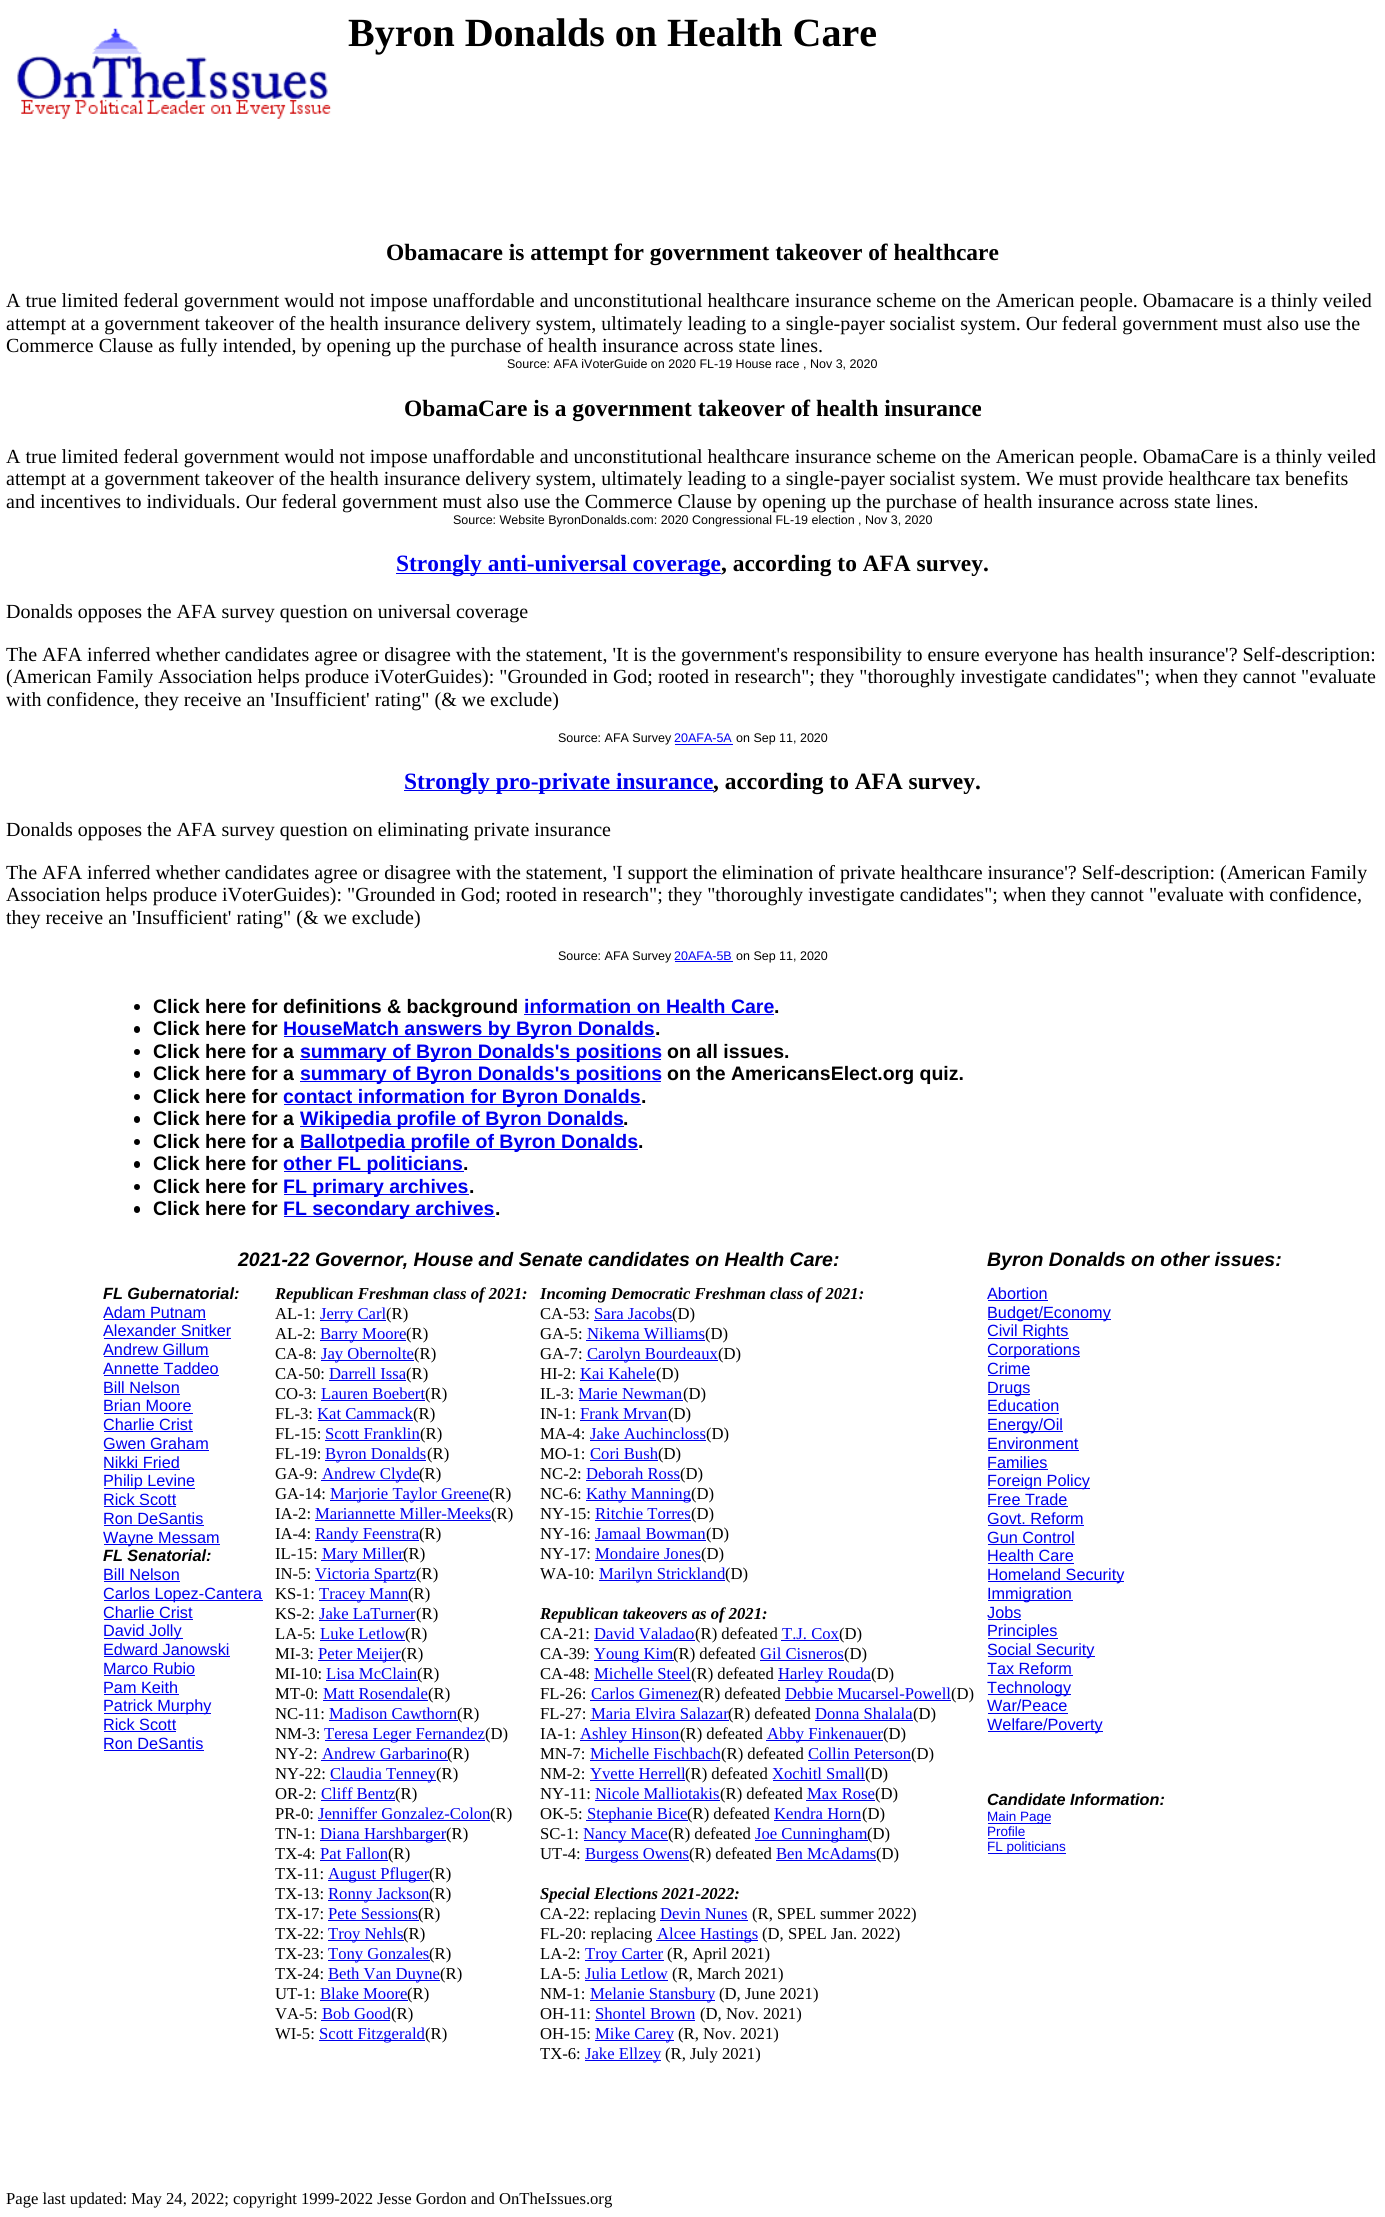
#include <cairo/cairo.h>
#include <math.h>
#include <stddef.h>

static cairo_t *cr;

static void use_color(int r, int g, int b) {
  cairo_set_source_rgb(cr, r / 255.0, g / 255.0, b / 255.0);
}

static void text(double x, double y, const char *s, const char *family, double size, int italic, int bold, int r, int g, int b) {
  cairo_select_font_face(cr, family, italic ? CAIRO_FONT_SLANT_ITALIC : CAIRO_FONT_SLANT_NORMAL,
    bold ? CAIRO_FONT_WEIGHT_BOLD : CAIRO_FONT_WEIGHT_NORMAL);
  cairo_set_font_size(cr, size);
  use_color(r, g, b);
  cairo_move_to(cr, x, y);
  cairo_show_text(cr, s);
}

static void box(double x, double y, double w, double h, int r, int g, int b) {
  use_color(r, g, b);
  cairo_rectangle(cr, x, y, w, h);
  cairo_fill(cr);
}

static void round_rect(double x, double y, double w, double h, double r) {
  cairo_new_sub_path(cr);
  cairo_arc(cr, x + w - r, y + h - r, r, 0, M_PI / 2);
  cairo_arc(cr, x + r, y + h - r, r, M_PI / 2, M_PI);
  cairo_arc(cr, x + r, y + r, r, M_PI, 1.5 * M_PI);
  cairo_arc(cr, x + w - r, y + r, r, 1.5 * M_PI, 2 * M_PI);
  cairo_close_path(cr);
}

static void picture(const char *path, double x, double y, double w, double h) {
  cairo_surface_t *image = cairo_image_surface_create_from_png(path);
  cairo_save(cr);
  cairo_set_source_surface(cr, image, x, y);
  cairo_rectangle(cr, x, y, w, h);
  cairo_fill(cr);
  cairo_restore(cr);
  cairo_surface_destroy(image);
}

static void draw(void) {
  use_color(255, 255, 255);
  cairo_paint(cr);
  picture("img_01.png", 17, 28, 315, 91);
  box(396, 573, 325, 1, 0, 0, 238);
  box(675, 744, 58, 1, 0, 0, 238);
  box(404, 790, 310, 1, 0, 0, 238);
  box(675, 961, 58, 1, 0, 0, 238);
  use_color(0, 0, 0);
  cairo_arc(cr, 137, 1007, 3, 0, 2 * M_PI);
  cairo_fill(cr);
  box(524, 1014, 250, 1, 0, 0, 238);
  use_color(0, 0, 0);
  round_rect(134, 1026, 6, 7, 3);
  cairo_fill(cr);
  box(284, 1036, 371, 1, 0, 0, 238);
  use_color(0, 0, 0);
  cairo_arc(cr, 137, 1052, 3, 0, 2 * M_PI);
  cairo_fill(cr);
  box(300, 1059, 361, 1, 0, 0, 238);
  use_color(0, 0, 0);
  round_rect(134, 1071, 6, 7, 3);
  cairo_fill(cr);
  box(300, 1081, 361, 1, 0, 0, 238);
  use_color(0, 0, 0);
  cairo_arc(cr, 137, 1097, 3, 0, 2 * M_PI);
  cairo_fill(cr);
  box(284, 1104, 357, 1, 0, 0, 238);
  use_color(0, 0, 0);
  round_rect(134, 1116, 6, 7, 3);
  cairo_fill(cr);
  box(300, 1126, 324, 1, 0, 0, 238);
  use_color(0, 0, 0);
  cairo_arc(cr, 137, 1142, 3, 0, 2 * M_PI);
  cairo_fill(cr);
  box(300, 1149, 338, 1, 0, 0, 238);
  use_color(0, 0, 0);
  round_rect(134, 1161, 6, 7, 3);
  cairo_fill(cr);
  box(284, 1171, 180, 1, 0, 0, 238);
  use_color(0, 0, 0);
  cairo_arc(cr, 137, 1187, 3, 0, 2 * M_PI);
  cairo_fill(cr);
  box(284, 1194, 185, 1, 0, 0, 238);
  use_color(0, 0, 0);
  round_rect(134, 1206, 6, 7, 3);
  cairo_fill(cr);
  box(284, 1216, 211, 1, 0, 0, 238);
  box(104, 1319, 102, 1, 0, 0, 238);
  box(104, 1338, 127, 1, 0, 0, 238);
  box(104, 1356, 105, 1, 0, 0, 238);
  box(104, 1375, 115, 1, 0, 0, 238);
  box(104, 1394, 76, 1, 0, 0, 238);
  box(104, 1413, 89, 1, 0, 0, 238);
  box(104, 1431, 89, 1, 0, 0, 238);
  box(104, 1450, 105, 1, 0, 0, 238);
  box(104, 1469, 76, 1, 0, 0, 238);
  box(104, 1488, 91, 1, 0, 0, 238);
  box(104, 1506, 72, 1, 0, 0, 238);
  box(104, 1525, 100, 1, 0, 0, 238);
  box(104, 1544, 116, 1, 0, 0, 238);
  box(104, 1581, 76, 1, 0, 0, 238);
  box(104, 1600, 159, 1, 0, 0, 238);
  box(104, 1619, 89, 1, 0, 0, 238);
  box(104, 1638, 79, 1, 0, 0, 238);
  box(104, 1656, 126, 1, 0, 0, 238);
  box(104, 1675, 91, 1, 0, 0, 238);
  box(104, 1694, 75, 1, 0, 0, 238);
  box(104, 1713, 107, 1, 0, 0, 238);
  box(104, 1731, 72, 1, 0, 0, 238);
  box(104, 1750, 100, 1, 0, 0, 238);
  box(320, 1320, 66, 1, 0, 0, 238);
  box(320, 1340, 86, 1, 0, 0, 238);
  box(321, 1360, 93, 1, 0, 0, 238);
  box(329, 1380, 77, 1, 0, 0, 238);
  box(321, 1400, 104, 1, 0, 0, 238);
  box(318, 1420, 95, 1, 0, 0, 238);
  box(325, 1440, 95, 1, 0, 0, 238);
  box(325, 1460, 101, 1, 0, 0, 238);
  box(321, 1480, 98, 1, 0, 0, 238);
  box(330, 1500, 159, 1, 0, 0, 238);
  box(315, 1520, 176, 1, 0, 0, 238);
  box(315, 1540, 104, 1, 0, 0, 238);
  box(321, 1560, 83, 1, 0, 0, 238);
  box(315, 1580, 101, 1, 0, 0, 238);
  box(319, 1600, 89, 1, 0, 0, 238);
  box(319, 1620, 96, 1, 0, 0, 238);
  box(320, 1640, 85, 1, 0, 0, 238);
  box(318, 1660, 83, 1, 0, 0, 238);
  box(326, 1680, 92, 1, 0, 0, 238);
  box(323, 1700, 105, 1, 0, 0, 238);
  box(329, 1720, 129, 1, 0, 0, 238);
  box(325, 1740, 160, 1, 0, 0, 238);
  box(321, 1760, 127, 1, 0, 0, 238);
  box(330, 1780, 106, 1, 0, 0, 238);
  box(321, 1800, 74, 1, 0, 0, 238);
  box(318, 1820, 172, 1, 0, 0, 238);
  box(320, 1840, 126, 1, 0, 0, 238);
  box(320, 1860, 68, 1, 0, 0, 238);
  box(328, 1880, 102, 1, 0, 0, 238);
  box(328, 1900, 102, 1, 0, 0, 238);
  box(328, 1920, 91, 1, 0, 0, 238);
  box(328, 1940, 76, 1, 0, 0, 238);
  box(328, 1960, 102, 1, 0, 0, 238);
  box(328, 1980, 112, 1, 0, 0, 238);
  box(320, 2000, 88, 1, 0, 0, 238);
  box(321, 2020, 69, 1, 0, 0, 238);
  box(319, 2040, 106, 1, 0, 0, 238);
  box(594, 1320, 79, 1, 0, 0, 238);
  box(586, 1340, 119, 1, 0, 0, 238);
  box(586, 1360, 132, 1, 0, 0, 238);
  box(580, 1380, 76, 1, 0, 0, 238);
  box(579, 1400, 104, 1, 0, 0, 238);
  box(580, 1420, 88, 1, 0, 0, 238);
  box(590, 1440, 116, 1, 0, 0, 238);
  box(590, 1460, 68, 1, 0, 0, 238);
  box(586, 1480, 94, 1, 0, 0, 238);
  box(586, 1500, 105, 1, 0, 0, 238);
  box(595, 1520, 96, 1, 0, 0, 238);
  box(595, 1540, 111, 1, 0, 0, 238);
  box(595, 1560, 106, 1, 0, 0, 238);
  box(599, 1580, 126, 1, 0, 0, 238);
  box(594, 1640, 101, 1, 0, 0, 238);
  box(781, 1640, 58, 1, 0, 0, 238);
  box(594, 1660, 80, 1, 0, 0, 238);
  box(760, 1660, 84, 1, 0, 0, 238);
  box(594, 1680, 97, 1, 0, 0, 238);
  box(778, 1680, 93, 1, 0, 0, 238);
  box(590, 1700, 109, 1, 0, 0, 238);
  box(785, 1700, 166, 1, 0, 0, 238);
  box(590, 1720, 139, 1, 0, 0, 238);
  box(815, 1720, 98, 1, 0, 0, 238);
  box(580, 1740, 100, 1, 0, 0, 238);
  box(766, 1740, 117, 1, 0, 0, 238);
  box(590, 1760, 130, 1, 0, 0, 238);
  box(808, 1760, 103, 1, 0, 0, 238);
  box(590, 1780, 95, 1, 0, 0, 238);
  box(773, 1780, 92, 1, 0, 0, 238);
  box(595, 1800, 125, 1, 0, 0, 238);
  box(806, 1800, 69, 1, 0, 0, 238);
  box(586, 1820, 102, 1, 0, 0, 238);
  box(774, 1820, 87, 1, 0, 0, 238);
  box(584, 1840, 84, 1, 0, 0, 238);
  box(755, 1840, 113, 1, 0, 0, 238);
  box(585, 1860, 104, 1, 0, 0, 238);
  box(776, 1860, 100, 1, 0, 0, 238);
  box(660, 1920, 88, 1, 0, 0, 238);
  box(656, 1940, 102, 1, 0, 0, 238);
  box(585, 1960, 79, 1, 0, 0, 238);
  box(585, 1980, 83, 1, 0, 0, 238);
  box(590, 2000, 125, 1, 0, 0, 238);
  box(595, 2020, 100, 1, 0, 0, 238);
  box(595, 2040, 79, 1, 0, 0, 238);
  box(585, 2060, 76, 1, 0, 0, 238);
  box(988, 1300, 60, 1, 0, 0, 238);
  box(988, 1319, 123, 1, 0, 0, 238);
  box(988, 1338, 81, 1, 0, 0, 238);
  box(988, 1356, 92, 1, 0, 0, 238);
  box(988, 1375, 42, 1, 0, 0, 238);
  box(988, 1394, 42, 1, 0, 0, 238);
  box(988, 1413, 71, 1, 0, 0, 238);
  box(988, 1431, 75, 1, 0, 0, 238);
  box(988, 1450, 91, 1, 0, 0, 238);
  box(988, 1469, 60, 1, 0, 0, 238);
  box(988, 1488, 102, 1, 0, 0, 238);
  box(988, 1506, 80, 1, 0, 0, 238);
  box(988, 1525, 96, 1, 0, 0, 238);
  box(988, 1544, 87, 1, 0, 0, 238);
  box(988, 1563, 86, 1, 0, 0, 238);
  box(988, 1581, 136, 1, 0, 0, 238);
  box(988, 1600, 85, 1, 0, 0, 238);
  box(988, 1619, 33, 1, 0, 0, 238);
  box(988, 1638, 70, 1, 0, 0, 238);
  box(988, 1656, 107, 1, 0, 0, 238);
  box(988, 1675, 85, 1, 0, 0, 238);
  box(988, 1694, 83, 1, 0, 0, 238);
  box(988, 1713, 80, 1, 0, 0, 238);
  box(988, 1731, 115, 1, 0, 0, 238);
  box(988, 1823, 63, 1, 0, 0, 238);
  box(988, 1838, 37, 1, 0, 0, 238);
  box(988, 1853, 78, 1, 0, 0, 238);
  text(348, 46, "Byron Donalds on Health Care", "Liberation Serif", 40, 0, 1, 0, 0, 0);
  text(386, 260, "Obamacare is attempt for government takeover of healthcare", "Liberation Serif", 23.4, 0, 1, 0, 0, 0);
  text(6, 307, "A true limited federal government would not impose unaffordable and unconstitutional healthcare insurance scheme on the American people. Obamacare is a thinly veiled", "Liberation Serif", 20, 0, 0, 0, 0, 0);
  text(6, 330, "attempt at a government takeover of the health insurance delivery system, ultimately leading to a single-payer socialist system. Our federal government must also use the", "Liberation Serif", 20, 0, 0, 0, 0, 0);
  text(6, 352, "Commerce Clause as fully intended, by opening up the purchase of health insurance across state lines.", "Liberation Serif", 20, 0, 0, 0, 0, 0);
  text(507, 368, "Source: AFA iVoterGuide on 2020 FL-19 House race , Nov 3, 2020", "Liberation Sans", 12.5, 0, 0, 0, 0, 0);
  text(404, 416, "ObamaCare is a government takeover of health insurance", "Liberation Serif", 23.4, 0, 1, 0, 0, 0);
  text(6, 463, "A true limited federal government would not impose unaffordable and unconstitutional healthcare insurance scheme on the American people. ObamaCare is a thinly veiled", "Liberation Serif", 20, 0, 0, 0, 0, 0);
  text(6, 485, "attempt at a government takeover of the health insurance delivery system, ultimately leading to a single-payer socialist system. We must provide healthcare tax benefits", "Liberation Serif", 20, 0, 0, 0, 0, 0);
  text(6, 508, "and incentives to individuals. Our federal government must also use the Commerce Clause by opening up the purchase of health insurance across state lines.", "Liberation Serif", 20, 0, 0, 0, 0, 0);
  text(453, 524, "Source: Website ByronDonalds.com: 2020 Congressional FL-19 election , Nov 3, 2020", "Liberation Sans", 12.5, 0, 0, 0, 0, 0);
  text(396, 571, "Strongly anti-universal coverage", "Liberation Serif", 23.4, 0, 1, 0, 0, 238);
  text(721, 571, ", according to AFA survey.", "Liberation Serif", 23.4, 0, 1, 0, 0, 0);
  text(6, 618, "Donalds opposes the AFA survey question on universal coverage", "Liberation Serif", 20, 0, 0, 0, 0, 0);
  text(6, 661, "The AFA inferred whether candidates agree or disagree with the statement, 'It is the government's responsibility to ensure everyone has health insurance'? Self-description:", "Liberation Serif", 20, 0, 0, 0, 0, 0);
  text(6, 683, "(American Family Association helps produce iVoterGuides): \"Grounded in God; rooted in research\"; they \"thoroughly investigate candidates\"; when they cannot \"evaluate", "Liberation Serif", 20, 0, 0, 0, 0, 0);
  text(6, 706, "with confidence, they receive an 'Insufficient' rating\" (& we exclude)", "Liberation Serif", 20, 0, 0, 0, 0, 0);
  text(558, 742, "Source: AFA Survey", "Liberation Sans", 12.5, 0, 0, 0, 0, 0);
  text(674, 742, "20AFA-5A", "Liberation Sans", 12.5, 0, 0, 0, 0, 238);
  text(736, 742, "on Sep 11, 2020", "Liberation Sans", 12.5, 0, 0, 0, 0, 0);
  text(404, 789, "Strongly pro-private insurance", "Liberation Serif", 23.4, 0, 1, 0, 0, 238);
  text(713, 789, ", according to AFA survey.", "Liberation Serif", 23.4, 0, 1, 0, 0, 0);
  text(6, 836, "Donalds opposes the AFA survey question on eliminating private insurance", "Liberation Serif", 20, 0, 0, 0, 0, 0);
  text(6, 879, "The AFA inferred whether candidates agree or disagree with the statement, 'I support the elimination of private healthcare insurance'? Self-description: (American Family", "Liberation Serif", 20, 0, 0, 0, 0, 0);
  text(6, 901, "Association helps produce iVoterGuides): \"Grounded in God; rooted in research\"; they \"thoroughly investigate candidates\"; when they cannot \"evaluate with confidence,", "Liberation Serif", 20, 0, 0, 0, 0, 0);
  text(6, 924, "they receive an 'Insufficient' rating\" (& we exclude)", "Liberation Serif", 20, 0, 0, 0, 0, 0);
  text(558, 960, "Source: AFA Survey", "Liberation Sans", 12.5, 0, 0, 0, 0, 0);
  text(674, 960, "20AFA-5B", "Liberation Sans", 12.5, 0, 0, 0, 0, 238);
  text(736, 960, "on Sep 11, 2020", "Liberation Sans", 12.5, 0, 0, 0, 0, 0);
  text(153, 1013, "Click here for definitions & background", "Liberation Sans", 19.5, 0, 1, 0, 0, 0);
  text(524, 1013, "information on Health Care", "Liberation Sans", 19.5, 0, 1, 0, 0, 238);
  text(774, 1013, ".", "Liberation Sans", 19.5, 0, 1, 0, 0, 0);
  text(153, 1035, "Click here for", "Liberation Sans", 19.5, 0, 1, 0, 0, 0);
  text(283, 1035, "HouseMatch answers by Byron Donalds", "Liberation Sans", 19.5, 0, 1, 0, 0, 238);
  text(655, 1035, ".", "Liberation Sans", 19.5, 0, 1, 0, 0, 0);
  text(153, 1058, "Click here for a", "Liberation Sans", 19.5, 0, 1, 0, 0, 0);
  text(300, 1058, "summary of Byron Donalds's positions", "Liberation Sans", 19.5, 0, 1, 0, 0, 238);
  text(667, 1058, "on all issues.", "Liberation Sans", 19.5, 0, 1, 0, 0, 0);
  text(153, 1080, "Click here for a", "Liberation Sans", 19.5, 0, 1, 0, 0, 0);
  text(300, 1080, "summary of Byron Donalds's positions", "Liberation Sans", 19.5, 0, 1, 0, 0, 238);
  text(667, 1080, "on the AmericansElect.org quiz.", "Liberation Sans", 19.5, 0, 1, 0, 0, 0);
  text(153, 1103, "Click here for", "Liberation Sans", 19.5, 0, 1, 0, 0, 0);
  text(283, 1103, "contact information for Byron Donalds", "Liberation Sans", 19.5, 0, 1, 0, 0, 238);
  text(641, 1103, ".", "Liberation Sans", 19.5, 0, 1, 0, 0, 0);
  text(153, 1125, "Click here for a", "Liberation Sans", 19.5, 0, 1, 0, 0, 0);
  text(300, 1125, "Wikipedia profile of Byron Donalds", "Liberation Sans", 19.5, 0, 1, 0, 0, 238);
  text(623, 1125, ".", "Liberation Sans", 19.5, 0, 1, 0, 0, 0);
  text(153, 1148, "Click here for a", "Liberation Sans", 19.5, 0, 1, 0, 0, 0);
  text(300, 1148, "Ballotpedia profile of Byron Donalds", "Liberation Sans", 19.5, 0, 1, 0, 0, 238);
  text(638, 1148, ".", "Liberation Sans", 19.5, 0, 1, 0, 0, 0);
  text(153, 1170, "Click here for", "Liberation Sans", 19.5, 0, 1, 0, 0, 0);
  text(283, 1170, "other FL politicians", "Liberation Sans", 19.5, 0, 1, 0, 0, 238);
  text(463, 1170, ".", "Liberation Sans", 19.5, 0, 1, 0, 0, 0);
  text(153, 1193, "Click here for", "Liberation Sans", 19.5, 0, 1, 0, 0, 0);
  text(283, 1193, "FL primary archives", "Liberation Sans", 19.5, 0, 1, 0, 0, 238);
  text(469, 1193, ".", "Liberation Sans", 19.5, 0, 1, 0, 0, 0);
  text(153, 1215, "Click here for", "Liberation Sans", 19.5, 0, 1, 0, 0, 0);
  text(283, 1215, "FL secondary archives", "Liberation Sans", 19.5, 0, 1, 0, 0, 238);
  text(495, 1215, ".", "Liberation Sans", 19.5, 0, 1, 0, 0, 0);
  text(238, 1266, "2021-22 Governor, House and Senate candidates on Health Care:", "Liberation Sans", 19.5, 1, 1, 0, 0, 0);
  text(987, 1266, "Byron Donalds on other issues:", "Liberation Sans", 19.5, 1, 1, 0, 0, 0);
  text(103, 1299, "FL Gubernatorial:", "Liberation Sans", 16.25, 1, 1, 0, 0, 0);
  text(103, 1318, "Adam Putnam", "Liberation Sans", 16.25, 0, 0, 0, 0, 238);
  text(103, 1336, "Alexander Snitker", "Liberation Sans", 16.25, 0, 0, 0, 0, 238);
  text(103, 1355, "Andrew Gillum", "Liberation Sans", 16.25, 0, 0, 0, 0, 238);
  text(103, 1374, "Annette Taddeo", "Liberation Sans", 16.25, 0, 0, 0, 0, 238);
  text(103, 1393, "Bill Nelson", "Liberation Sans", 16.25, 0, 0, 0, 0, 238);
  text(103, 1411, "Brian Moore", "Liberation Sans", 16.25, 0, 0, 0, 0, 238);
  text(103, 1430, "Charlie Crist", "Liberation Sans", 16.25, 0, 0, 0, 0, 238);
  text(103, 1449, "Gwen Graham", "Liberation Sans", 16.25, 0, 0, 0, 0, 238);
  text(103, 1468, "Nikki Fried", "Liberation Sans", 16.25, 0, 0, 0, 0, 238);
  text(103, 1486, "Philip Levine", "Liberation Sans", 16.25, 0, 0, 0, 0, 238);
  text(103, 1505, "Rick Scott", "Liberation Sans", 16.25, 0, 0, 0, 0, 238);
  text(103, 1524, "Ron DeSantis", "Liberation Sans", 16.25, 0, 0, 0, 0, 238);
  text(103, 1543, "Wayne Messam", "Liberation Sans", 16.25, 0, 0, 0, 0, 238);
  text(103, 1561, "FL Senatorial:", "Liberation Sans", 16.25, 1, 1, 0, 0, 0);
  text(103, 1580, "Bill Nelson", "Liberation Sans", 16.25, 0, 0, 0, 0, 238);
  text(103, 1599, "Carlos Lopez-Cantera", "Liberation Sans", 16.25, 0, 0, 0, 0, 238);
  text(103, 1618, "Charlie Crist", "Liberation Sans", 16.25, 0, 0, 0, 0, 238);
  text(103, 1636, "David Jolly", "Liberation Sans", 16.25, 0, 0, 0, 0, 238);
  text(103, 1655, "Edward Janowski", "Liberation Sans", 16.25, 0, 0, 0, 0, 238);
  text(103, 1674, "Marco Rubio", "Liberation Sans", 16.25, 0, 0, 0, 0, 238);
  text(103, 1693, "Pam Keith", "Liberation Sans", 16.25, 0, 0, 0, 0, 238);
  text(103, 1711, "Patrick Murphy", "Liberation Sans", 16.25, 0, 0, 0, 0, 238);
  text(103, 1730, "Rick Scott", "Liberation Sans", 16.25, 0, 0, 0, 0, 238);
  text(103, 1749, "Ron DeSantis", "Liberation Sans", 16.25, 0, 0, 0, 0, 238);
  text(275, 1299, "Republican Freshman class of 2021:", "Liberation Serif", 16.65, 1, 1, 0, 0, 0);
  text(275, 1319, "AL-1:", "Liberation Serif", 16.65, 0, 0, 0, 0, 0);
  text(320, 1319, "Jerry Carl", "Liberation Serif", 16.65, 0, 0, 0, 0, 238);
  text(386, 1319, "(R)", "Liberation Serif", 16.65, 0, 0, 0, 0, 0);
  text(275, 1339, "AL-2:", "Liberation Serif", 16.65, 0, 0, 0, 0, 0);
  text(320, 1339, "Barry Moore", "Liberation Serif", 16.65, 0, 0, 0, 0, 238);
  text(406, 1339, "(R)", "Liberation Serif", 16.65, 0, 0, 0, 0, 0);
  text(275, 1359, "CA-8:", "Liberation Serif", 16.65, 0, 0, 0, 0, 0);
  text(321, 1359, "Jay Obernolte", "Liberation Serif", 16.65, 0, 0, 0, 0, 238);
  text(414, 1359, "(R)", "Liberation Serif", 16.65, 0, 0, 0, 0, 0);
  text(275, 1379, "CA-50:", "Liberation Serif", 16.65, 0, 0, 0, 0, 0);
  text(329, 1379, "Darrell Issa", "Liberation Serif", 16.65, 0, 0, 0, 0, 238);
  text(406, 1379, "(R)", "Liberation Serif", 16.65, 0, 0, 0, 0, 0);
  text(275, 1399, "CO-3:", "Liberation Serif", 16.65, 0, 0, 0, 0, 0);
  text(321, 1399, "Lauren Boebert", "Liberation Serif", 16.65, 0, 0, 0, 0, 238);
  text(425, 1399, "(R)", "Liberation Serif", 16.65, 0, 0, 0, 0, 0);
  text(275, 1419, "FL-3:", "Liberation Serif", 16.65, 0, 0, 0, 0, 0);
  text(317, 1419, "Kat Cammack", "Liberation Serif", 16.65, 0, 0, 0, 0, 238);
  text(413, 1419, "(R)", "Liberation Serif", 16.65, 0, 0, 0, 0, 0);
  text(275, 1439, "FL-15:", "Liberation Serif", 16.65, 0, 0, 0, 0, 0);
  text(325, 1439, "Scott Franklin", "Liberation Serif", 16.65, 0, 0, 0, 0, 238);
  text(420, 1439, "(R)", "Liberation Serif", 16.65, 0, 0, 0, 0, 0);
  text(275, 1459, "FL-19:", "Liberation Serif", 16.65, 0, 0, 0, 0, 0);
  text(325, 1459, "Byron Donalds", "Liberation Serif", 16.65, 0, 0, 0, 0, 238);
  text(427, 1459, "(R)", "Liberation Serif", 16.65, 0, 0, 0, 0, 0);
  text(275, 1479, "GA-9:", "Liberation Serif", 16.65, 0, 0, 0, 0, 0);
  text(322, 1479, "Andrew Clyde", "Liberation Serif", 16.65, 0, 0, 0, 0, 238);
  text(419, 1479, "(R)", "Liberation Serif", 16.65, 0, 0, 0, 0, 0);
  text(275, 1499, "GA-14:", "Liberation Serif", 16.65, 0, 0, 0, 0, 0);
  text(330, 1499, "Marjorie Taylor Greene", "Liberation Serif", 16.65, 0, 0, 0, 0, 238);
  text(489, 1499, "(R)", "Liberation Serif", 16.65, 0, 0, 0, 0, 0);
  text(275, 1519, "IA-2:", "Liberation Serif", 16.65, 0, 0, 0, 0, 0);
  text(315, 1519, "Mariannette Miller-Meeks", "Liberation Serif", 16.65, 0, 0, 0, 0, 238);
  text(491, 1519, "(R)", "Liberation Serif", 16.65, 0, 0, 0, 0, 0);
  text(275, 1539, "IA-4:", "Liberation Serif", 16.65, 0, 0, 0, 0, 0);
  text(315, 1539, "Randy Feenstra", "Liberation Serif", 16.65, 0, 0, 0, 0, 238);
  text(419, 1539, "(R)", "Liberation Serif", 16.65, 0, 0, 0, 0, 0);
  text(275, 1559, "IL-15:", "Liberation Serif", 16.65, 0, 0, 0, 0, 0);
  text(322, 1559, "Mary Miller", "Liberation Serif", 16.65, 0, 0, 0, 0, 238);
  text(403, 1559, "(R)", "Liberation Serif", 16.65, 0, 0, 0, 0, 0);
  text(275, 1579, "IN-5:", "Liberation Serif", 16.65, 0, 0, 0, 0, 0);
  text(315, 1579, "Victoria Spartz", "Liberation Serif", 16.65, 0, 0, 0, 0, 238);
  text(416, 1579, "(R)", "Liberation Serif", 16.65, 0, 0, 0, 0, 0);
  text(275, 1599, "KS-1:", "Liberation Serif", 16.65, 0, 0, 0, 0, 0);
  text(319, 1599, "Tracey Mann", "Liberation Serif", 16.65, 0, 0, 0, 0, 238);
  text(408, 1599, "(R)", "Liberation Serif", 16.65, 0, 0, 0, 0, 0);
  text(275, 1619, "KS-2:", "Liberation Serif", 16.65, 0, 0, 0, 0, 0);
  text(319, 1619, "Jake LaTurner", "Liberation Serif", 16.65, 0, 0, 0, 0, 238);
  text(416, 1619, "(R)", "Liberation Serif", 16.65, 0, 0, 0, 0, 0);
  text(275, 1639, "LA-5:", "Liberation Serif", 16.65, 0, 0, 0, 0, 0);
  text(320, 1639, "Luke Letlow", "Liberation Serif", 16.65, 0, 0, 0, 0, 238);
  text(405, 1639, "(R)", "Liberation Serif", 16.65, 0, 0, 0, 0, 0);
  text(275, 1659, "MI-3:", "Liberation Serif", 16.65, 0, 0, 0, 0, 0);
  text(318, 1659, "Peter Meijer", "Liberation Serif", 16.65, 0, 0, 0, 0, 238);
  text(401, 1659, "(R)", "Liberation Serif", 16.65, 0, 0, 0, 0, 0);
  text(275, 1679, "MI-10:", "Liberation Serif", 16.65, 0, 0, 0, 0, 0);
  text(326, 1679, "Lisa McClain", "Liberation Serif", 16.65, 0, 0, 0, 0, 238);
  text(417, 1679, "(R)", "Liberation Serif", 16.65, 0, 0, 0, 0, 0);
  text(275, 1699, "MT-0:", "Liberation Serif", 16.65, 0, 0, 0, 0, 0);
  text(323, 1699, "Matt Rosendale", "Liberation Serif", 16.65, 0, 0, 0, 0, 238);
  text(428, 1699, "(R)", "Liberation Serif", 16.65, 0, 0, 0, 0, 0);
  text(275, 1719, "NC-11:", "Liberation Serif", 16.65, 0, 0, 0, 0, 0);
  text(329, 1719, "Madison Cawthorn", "Liberation Serif", 16.65, 0, 0, 0, 0, 238);
  text(457, 1719, "(R)", "Liberation Serif", 16.65, 0, 0, 0, 0, 0);
  text(275, 1739, "NM-3:", "Liberation Serif", 16.65, 0, 0, 0, 0, 0);
  text(324, 1739, "Teresa Leger Fernandez", "Liberation Serif", 16.65, 0, 0, 0, 0, 238);
  text(485, 1739, "(D)", "Liberation Serif", 16.65, 0, 0, 0, 0, 0);
  text(275, 1759, "NY-2:", "Liberation Serif", 16.65, 0, 0, 0, 0, 0);
  text(322, 1759, "Andrew Garbarino", "Liberation Serif", 16.65, 0, 0, 0, 0, 238);
  text(447, 1759, "(R)", "Liberation Serif", 16.65, 0, 0, 0, 0, 0);
  text(275, 1779, "NY-22:", "Liberation Serif", 16.65, 0, 0, 0, 0, 0);
  text(330, 1779, "Claudia Tenney", "Liberation Serif", 16.65, 0, 0, 0, 0, 238);
  text(436, 1779, "(R)", "Liberation Serif", 16.65, 0, 0, 0, 0, 0);
  text(275, 1799, "OR-2:", "Liberation Serif", 16.65, 0, 0, 0, 0, 0);
  text(321, 1799, "Cliff Bentz", "Liberation Serif", 16.65, 0, 0, 0, 0, 238);
  text(395, 1799, "(R)", "Liberation Serif", 16.65, 0, 0, 0, 0, 0);
  text(275, 1819, "PR-0:", "Liberation Serif", 16.65, 0, 0, 0, 0, 0);
  text(318, 1819, "Jenniffer Gonzalez-Colon", "Liberation Serif", 16.65, 0, 0, 0, 0, 238);
  text(490, 1819, "(R)", "Liberation Serif", 16.65, 0, 0, 0, 0, 0);
  text(275, 1839, "TN-1:", "Liberation Serif", 16.65, 0, 0, 0, 0, 0);
  text(320, 1839, "Diana Harshbarger", "Liberation Serif", 16.65, 0, 0, 0, 0, 238);
  text(446, 1839, "(R)", "Liberation Serif", 16.65, 0, 0, 0, 0, 0);
  text(275, 1859, "TX-4:", "Liberation Serif", 16.65, 0, 0, 0, 0, 0);
  text(320, 1859, "Pat Fallon", "Liberation Serif", 16.65, 0, 0, 0, 0, 238);
  text(388, 1859, "(R)", "Liberation Serif", 16.65, 0, 0, 0, 0, 0);
  text(275, 1879, "TX-11:", "Liberation Serif", 16.65, 0, 0, 0, 0, 0);
  text(328, 1879, "August Pfluger", "Liberation Serif", 16.65, 0, 0, 0, 0, 238);
  text(429, 1879, "(R)", "Liberation Serif", 16.65, 0, 0, 0, 0, 0);
  text(275, 1899, "TX-13:", "Liberation Serif", 16.65, 0, 0, 0, 0, 0);
  text(328, 1899, "Ronny Jackson", "Liberation Serif", 16.65, 0, 0, 0, 0, 238);
  text(429, 1899, "(R)", "Liberation Serif", 16.65, 0, 0, 0, 0, 0);
  text(275, 1919, "TX-17:", "Liberation Serif", 16.65, 0, 0, 0, 0, 0);
  text(328, 1919, "Pete Sessions", "Liberation Serif", 16.65, 0, 0, 0, 0, 238);
  text(418, 1919, "(R)", "Liberation Serif", 16.65, 0, 0, 0, 0, 0);
  text(275, 1939, "TX-22:", "Liberation Serif", 16.65, 0, 0, 0, 0, 0);
  text(328, 1939, "Troy Nehls", "Liberation Serif", 16.65, 0, 0, 0, 0, 238);
  text(403, 1939, "(R)", "Liberation Serif", 16.65, 0, 0, 0, 0, 0);
  text(275, 1959, "TX-23:", "Liberation Serif", 16.65, 0, 0, 0, 0, 0);
  text(328, 1959, "Tony Gonzales", "Liberation Serif", 16.65, 0, 0, 0, 0, 238);
  text(429, 1959, "(R)", "Liberation Serif", 16.65, 0, 0, 0, 0, 0);
  text(275, 1979, "TX-24:", "Liberation Serif", 16.65, 0, 0, 0, 0, 0);
  text(328, 1979, "Beth Van Duyne", "Liberation Serif", 16.65, 0, 0, 0, 0, 238);
  text(440, 1979, "(R)", "Liberation Serif", 16.65, 0, 0, 0, 0, 0);
  text(275, 1999, "UT-1:", "Liberation Serif", 16.65, 0, 0, 0, 0, 0);
  text(320, 1999, "Blake Moore", "Liberation Serif", 16.65, 0, 0, 0, 0, 238);
  text(407, 1999, "(R)", "Liberation Serif", 16.65, 0, 0, 0, 0, 0);
  text(275, 2019, "VA-5:", "Liberation Serif", 16.65, 0, 0, 0, 0, 0);
  text(322, 2019, "Bob Good", "Liberation Serif", 16.65, 0, 0, 0, 0, 238);
  text(391, 2019, "(R)", "Liberation Serif", 16.65, 0, 0, 0, 0, 0);
  text(275, 2039, "WI-5:", "Liberation Serif", 16.65, 0, 0, 0, 0, 0);
  text(319, 2039, "Scott Fitzgerald", "Liberation Serif", 16.65, 0, 0, 0, 0, 238);
  text(425, 2039, "(R)", "Liberation Serif", 16.65, 0, 0, 0, 0, 0);
  text(540, 1299, "Incoming Democratic Freshman class of 2021:", "Liberation Serif", 16.65, 1, 1, 0, 0, 0);
  text(540, 1319, "CA-53:", "Liberation Serif", 16.65, 0, 0, 0, 0, 0);
  text(594, 1319, "Sara Jacobs", "Liberation Serif", 16.65, 0, 0, 0, 0, 238);
  text(672, 1319, "(D)", "Liberation Serif", 16.65, 0, 0, 0, 0, 0);
  text(540, 1339, "GA-5:", "Liberation Serif", 16.65, 0, 0, 0, 0, 0);
  text(587, 1339, "Nikema Williams", "Liberation Serif", 16.65, 0, 0, 0, 0, 238);
  text(705, 1339, "(D)", "Liberation Serif", 16.65, 0, 0, 0, 0, 0);
  text(540, 1359, "GA-7:", "Liberation Serif", 16.65, 0, 0, 0, 0, 0);
  text(587, 1359, "Carolyn Bourdeaux", "Liberation Serif", 16.65, 0, 0, 0, 0, 238);
  text(718, 1359, "(D)", "Liberation Serif", 16.65, 0, 0, 0, 0, 0);
  text(540, 1379, "HI-2:", "Liberation Serif", 16.65, 0, 0, 0, 0, 0);
  text(580, 1379, "Kai Kahele", "Liberation Serif", 16.65, 0, 0, 0, 0, 238);
  text(656, 1379, "(D)", "Liberation Serif", 16.65, 0, 0, 0, 0, 0);
  text(540, 1399, "IL-3:", "Liberation Serif", 16.65, 0, 0, 0, 0, 0);
  text(578, 1399, "Marie Newman", "Liberation Serif", 16.65, 0, 0, 0, 0, 238);
  text(683, 1399, "(D)", "Liberation Serif", 16.65, 0, 0, 0, 0, 0);
  text(540, 1419, "IN-1:", "Liberation Serif", 16.65, 0, 0, 0, 0, 0);
  text(580, 1419, "Frank Mrvan", "Liberation Serif", 16.65, 0, 0, 0, 0, 238);
  text(668, 1419, "(D)", "Liberation Serif", 16.65, 0, 0, 0, 0, 0);
  text(540, 1439, "MA-4:", "Liberation Serif", 16.65, 0, 0, 0, 0, 0);
  text(590, 1439, "Jake Auchincloss", "Liberation Serif", 16.65, 0, 0, 0, 0, 238);
  text(706, 1439, "(D)", "Liberation Serif", 16.65, 0, 0, 0, 0, 0);
  text(540, 1459, "MO-1:", "Liberation Serif", 16.65, 0, 0, 0, 0, 0);
  text(590, 1459, "Cori Bush", "Liberation Serif", 16.65, 0, 0, 0, 0, 238);
  text(658, 1459, "(D)", "Liberation Serif", 16.65, 0, 0, 0, 0, 0);
  text(540, 1479, "NC-2:", "Liberation Serif", 16.65, 0, 0, 0, 0, 0);
  text(586, 1479, "Deborah Ross", "Liberation Serif", 16.65, 0, 0, 0, 0, 238);
  text(680, 1479, "(D)", "Liberation Serif", 16.65, 0, 0, 0, 0, 0);
  text(540, 1499, "NC-6:", "Liberation Serif", 16.65, 0, 0, 0, 0, 0);
  text(586, 1499, "Kathy Manning", "Liberation Serif", 16.65, 0, 0, 0, 0, 238);
  text(691, 1499, "(D)", "Liberation Serif", 16.65, 0, 0, 0, 0, 0);
  text(540, 1519, "NY-15:", "Liberation Serif", 16.65, 0, 0, 0, 0, 0);
  text(595, 1519, "Ritchie Torres", "Liberation Serif", 16.65, 0, 0, 0, 0, 238);
  text(691, 1519, "(D)", "Liberation Serif", 16.65, 0, 0, 0, 0, 0);
  text(540, 1539, "NY-16:", "Liberation Serif", 16.65, 0, 0, 0, 0, 0);
  text(595, 1539, "Jamaal Bowman", "Liberation Serif", 16.65, 0, 0, 0, 0, 238);
  text(706, 1539, "(D)", "Liberation Serif", 16.65, 0, 0, 0, 0, 0);
  text(540, 1559, "NY-17:", "Liberation Serif", 16.65, 0, 0, 0, 0, 0);
  text(595, 1559, "Mondaire Jones", "Liberation Serif", 16.65, 0, 0, 0, 0, 238);
  text(701, 1559, "(D)", "Liberation Serif", 16.65, 0, 0, 0, 0, 0);
  text(540, 1579, "WA-10:", "Liberation Serif", 16.65, 0, 0, 0, 0, 0);
  text(599, 1579, "Marilyn Strickland", "Liberation Serif", 16.65, 0, 0, 0, 0, 238);
  text(725, 1579, "(D)", "Liberation Serif", 16.65, 0, 0, 0, 0, 0);
  text(540, 1619, "Republican takeovers as of 2021:", "Liberation Serif", 16.65, 1, 1, 0, 0, 0);
  text(540, 1639, "CA-21:", "Liberation Serif", 16.65, 0, 0, 0, 0, 0);
  text(594, 1639, "David Valadao", "Liberation Serif", 16.65, 0, 0, 0, 0, 238);
  text(695, 1639, "(R) defeated", "Liberation Serif", 16.65, 0, 0, 0, 0, 0);
  text(782, 1639, "T.J. Cox", "Liberation Serif", 16.65, 0, 0, 0, 0, 238);
  text(839, 1639, "(D)", "Liberation Serif", 16.65, 0, 0, 0, 0, 0);
  text(540, 1659, "CA-39:", "Liberation Serif", 16.65, 0, 0, 0, 0, 0);
  text(594, 1659, "Young Kim", "Liberation Serif", 16.65, 0, 0, 0, 0, 238);
  text(673, 1659, "(R) defeated", "Liberation Serif", 16.65, 0, 0, 0, 0, 0);
  text(760, 1659, "Gil Cisneros", "Liberation Serif", 16.65, 0, 0, 0, 0, 238);
  text(844, 1659, "(D)", "Liberation Serif", 16.65, 0, 0, 0, 0, 0);
  text(540, 1679, "CA-48:", "Liberation Serif", 16.65, 0, 0, 0, 0, 0);
  text(594, 1679, "Michelle Steel", "Liberation Serif", 16.65, 0, 0, 0, 0, 238);
  text(691, 1679, "(R) defeated", "Liberation Serif", 16.65, 0, 0, 0, 0, 0);
  text(778, 1679, "Harley Rouda", "Liberation Serif", 16.65, 0, 0, 0, 0, 238);
  text(871, 1679, "(D)", "Liberation Serif", 16.65, 0, 0, 0, 0, 0);
  text(540, 1699, "FL-26:", "Liberation Serif", 16.65, 0, 0, 0, 0, 0);
  text(591, 1699, "Carlos Gimenez", "Liberation Serif", 16.65, 0, 0, 0, 0, 238);
  text(698, 1699, "(R) defeated", "Liberation Serif", 16.65, 0, 0, 0, 0, 0);
  text(785, 1699, "Debbie Mucarsel-Powell", "Liberation Serif", 16.65, 0, 0, 0, 0, 238);
  text(951, 1699, "(D)", "Liberation Serif", 16.65, 0, 0, 0, 0, 0);
  text(540, 1719, "FL-27:", "Liberation Serif", 16.65, 0, 0, 0, 0, 0);
  text(591, 1719, "Maria Elvira Salazar", "Liberation Serif", 16.65, 0, 0, 0, 0, 238);
  text(728, 1719, "(R) defeated", "Liberation Serif", 16.65, 0, 0, 0, 0, 0);
  text(815, 1719, "Donna Shalala", "Liberation Serif", 16.65, 0, 0, 0, 0, 238);
  text(913, 1719, "(D)", "Liberation Serif", 16.65, 0, 0, 0, 0, 0);
  text(540, 1739, "IA-1:", "Liberation Serif", 16.65, 0, 0, 0, 0, 0);
  text(580, 1739, "Ashley Hinson", "Liberation Serif", 16.65, 0, 0, 0, 0, 238);
  text(680, 1739, "(R) defeated", "Liberation Serif", 16.65, 0, 0, 0, 0, 0);
  text(767, 1739, "Abby Finkenauer", "Liberation Serif", 16.65, 0, 0, 0, 0, 238);
  text(883, 1739, "(D)", "Liberation Serif", 16.65, 0, 0, 0, 0, 0);
  text(540, 1759, "MN-7:", "Liberation Serif", 16.65, 0, 0, 0, 0, 0);
  text(590, 1759, "Michelle Fischbach", "Liberation Serif", 16.65, 0, 0, 0, 0, 238);
  text(721, 1759, "(R) defeated", "Liberation Serif", 16.65, 0, 0, 0, 0, 0);
  text(808, 1759, "Collin Peterson", "Liberation Serif", 16.65, 0, 0, 0, 0, 238);
  text(911, 1759, "(D)", "Liberation Serif", 16.65, 0, 0, 0, 0, 0);
  text(540, 1779, "NM-2:", "Liberation Serif", 16.65, 0, 0, 0, 0, 0);
  text(590, 1779, "Yvette Herrell", "Liberation Serif", 16.65, 0, 0, 0, 0, 238);
  text(685, 1779, "(R) defeated", "Liberation Serif", 16.65, 0, 0, 0, 0, 0);
  text(772, 1779, "Xochitl Small", "Liberation Serif", 16.65, 0, 0, 0, 0, 238);
  text(865, 1779, "(D)", "Liberation Serif", 16.65, 0, 0, 0, 0, 0);
  text(540, 1799, "NY-11:", "Liberation Serif", 16.65, 0, 0, 0, 0, 0);
  text(595, 1799, "Nicole Malliotakis", "Liberation Serif", 16.65, 0, 0, 0, 0, 238);
  text(720, 1799, "(R) defeated", "Liberation Serif", 16.65, 0, 0, 0, 0, 0);
  text(807, 1799, "Max Rose", "Liberation Serif", 16.65, 0, 0, 0, 0, 238);
  text(875, 1799, "(D)", "Liberation Serif", 16.65, 0, 0, 0, 0, 0);
  text(540, 1819, "OK-5:", "Liberation Serif", 16.65, 0, 0, 0, 0, 0);
  text(587, 1819, "Stephanie Bice", "Liberation Serif", 16.65, 0, 0, 0, 0, 238);
  text(687, 1819, "(R) defeated", "Liberation Serif", 16.65, 0, 0, 0, 0, 0);
  text(774, 1819, "Kendra Horn", "Liberation Serif", 16.65, 0, 0, 0, 0, 238);
  text(862, 1819, "(D)", "Liberation Serif", 16.65, 0, 0, 0, 0, 0);
  text(540, 1839, "SC-1:", "Liberation Serif", 16.65, 0, 0, 0, 0, 0);
  text(583, 1839, "Nancy Mace", "Liberation Serif", 16.65, 0, 0, 0, 0, 238);
  text(668, 1839, "(R) defeated", "Liberation Serif", 16.65, 0, 0, 0, 0, 0);
  text(755, 1839, "Joe Cunningham", "Liberation Serif", 16.65, 0, 0, 0, 0, 238);
  text(867, 1839, "(D)", "Liberation Serif", 16.65, 0, 0, 0, 0, 0);
  text(540, 1859, "UT-4:", "Liberation Serif", 16.65, 0, 0, 0, 0, 0);
  text(585, 1859, "Burgess Owens", "Liberation Serif", 16.65, 0, 0, 0, 0, 238);
  text(689, 1859, "(R) defeated", "Liberation Serif", 16.65, 0, 0, 0, 0, 0);
  text(776, 1859, "Ben McAdams", "Liberation Serif", 16.65, 0, 0, 0, 0, 238);
  text(876, 1859, "(D)", "Liberation Serif", 16.65, 0, 0, 0, 0, 0);
  text(540, 1899, "Special Elections 2021-2022:", "Liberation Serif", 16.65, 1, 1, 0, 0, 0);
  text(540, 1919, "CA-22: replacing", "Liberation Serif", 16.65, 0, 0, 0, 0, 0);
  text(660, 1919, "Devin Nunes", "Liberation Serif", 16.65, 0, 0, 0, 0, 238);
  text(752, 1919, "(R, SPEL summer 2022)", "Liberation Serif", 16.65, 0, 0, 0, 0, 0);
  text(540, 1939, "FL-20: replacing", "Liberation Serif", 16.65, 0, 0, 0, 0, 0);
  text(657, 1939, "Alcee Hastings", "Liberation Serif", 16.65, 0, 0, 0, 0, 238);
  text(762, 1939, "(D, SPEL Jan. 2022)", "Liberation Serif", 16.65, 0, 0, 0, 0, 0);
  text(540, 1959, "LA-2:", "Liberation Serif", 16.65, 0, 0, 0, 0, 0);
  text(585, 1959, "Troy Carter", "Liberation Serif", 16.65, 0, 0, 0, 0, 238);
  text(667, 1959, "(R, April 2021)", "Liberation Serif", 16.65, 0, 0, 0, 0, 0);
  text(540, 1979, "LA-5:", "Liberation Serif", 16.65, 0, 0, 0, 0, 0);
  text(585, 1979, "Julia Letlow", "Liberation Serif", 16.65, 0, 0, 0, 0, 238);
  text(672, 1979, "(R, March 2021)", "Liberation Serif", 16.65, 0, 0, 0, 0, 0);
  text(540, 1999, "NM-1:", "Liberation Serif", 16.65, 0, 0, 0, 0, 0);
  text(590, 1999, "Melanie Stansbury", "Liberation Serif", 16.65, 0, 0, 0, 0, 238);
  text(719, 1999, "(D, June 2021)", "Liberation Serif", 16.65, 0, 0, 0, 0, 0);
  text(540, 2019, "OH-11:", "Liberation Serif", 16.65, 0, 0, 0, 0, 0);
  text(595, 2019, "Shontel Brown", "Liberation Serif", 16.65, 0, 0, 0, 0, 238);
  text(700, 2019, "(D, Nov. 2021)", "Liberation Serif", 16.65, 0, 0, 0, 0, 0);
  text(540, 2039, "OH-15:", "Liberation Serif", 16.65, 0, 0, 0, 0, 0);
  text(595, 2039, "Mike Carey", "Liberation Serif", 16.65, 0, 0, 0, 0, 238);
  text(678, 2039, "(R, Nov. 2021)", "Liberation Serif", 16.65, 0, 0, 0, 0, 0);
  text(540, 2059, "TX-6:", "Liberation Serif", 16.65, 0, 0, 0, 0, 0);
  text(585, 2059, "Jake Ellzey", "Liberation Serif", 16.65, 0, 0, 0, 0, 238);
  text(665, 2059, "(R, July 2021)", "Liberation Serif", 16.65, 0, 0, 0, 0, 0);
  text(987, 1299, "Abortion", "Liberation Sans", 16.25, 0, 0, 0, 0, 238);
  text(987, 1318, "Budget/Economy", "Liberation Sans", 16.25, 0, 0, 0, 0, 238);
  text(987, 1336, "Civil Rights", "Liberation Sans", 16.25, 0, 0, 0, 0, 238);
  text(987, 1355, "Corporations", "Liberation Sans", 16.25, 0, 0, 0, 0, 238);
  text(987, 1374, "Crime", "Liberation Sans", 16.25, 0, 0, 0, 0, 238);
  text(987, 1393, "Drugs", "Liberation Sans", 16.25, 0, 0, 0, 0, 238);
  text(987, 1411, "Education", "Liberation Sans", 16.25, 0, 0, 0, 0, 238);
  text(987, 1430, "Energy/Oil", "Liberation Sans", 16.25, 0, 0, 0, 0, 238);
  text(987, 1449, "Environment", "Liberation Sans", 16.25, 0, 0, 0, 0, 238);
  text(987, 1468, "Families", "Liberation Sans", 16.25, 0, 0, 0, 0, 238);
  text(987, 1486, "Foreign Policy", "Liberation Sans", 16.25, 0, 0, 0, 0, 238);
  text(987, 1505, "Free Trade", "Liberation Sans", 16.25, 0, 0, 0, 0, 238);
  text(987, 1524, "Govt. Reform", "Liberation Sans", 16.25, 0, 0, 0, 0, 238);
  text(987, 1543, "Gun Control", "Liberation Sans", 16.25, 0, 0, 0, 0, 238);
  text(987, 1561, "Health Care", "Liberation Sans", 16.25, 0, 0, 0, 0, 238);
  text(987, 1580, "Homeland Security", "Liberation Sans", 16.25, 0, 0, 0, 0, 238);
  text(987, 1599, "Immigration", "Liberation Sans", 16.25, 0, 0, 0, 0, 238);
  text(987, 1618, "Jobs", "Liberation Sans", 16.25, 0, 0, 0, 0, 238);
  text(987, 1636, "Principles", "Liberation Sans", 16.25, 0, 0, 0, 0, 238);
  text(987, 1655, "Social Security", "Liberation Sans", 16.25, 0, 0, 0, 0, 238);
  text(987, 1674, "Tax Reform", "Liberation Sans", 16.25, 0, 0, 0, 0, 238);
  text(987, 1693, "Technology", "Liberation Sans", 16.25, 0, 0, 0, 0, 238);
  text(987, 1711, "War/Peace", "Liberation Sans", 16.25, 0, 0, 0, 0, 238);
  text(987, 1730, "Welfare/Poverty", "Liberation Sans", 16.25, 0, 0, 0, 0, 238);
  text(987, 1805, "Candidate Information:", "Liberation Sans", 16.25, 1, 1, 0, 0, 0);
  text(987, 1821, "Main Page", "Liberation Sans", 13.5, 0, 0, 0, 0, 238);
  text(987, 1836, "Profile", "Liberation Sans", 13.5, 0, 0, 0, 0, 238);
  text(987, 1851, "FL politicians", "Liberation Sans", 13.5, 0, 0, 0, 0, 238);
  text(6, 2204, "Page last updated: May 24, 2022; copyright 1999-2022 Jesse Gordon and OnTheIssues.org", "Liberation Serif", 16.65, 0, 0, 0, 0, 0);
}

int main(void) {
  cairo_surface_t *surface = cairo_image_surface_create(CAIRO_FORMAT_RGB24, 1385, 2217);
  cr = cairo_create(surface);
  cairo_font_options_t *options = cairo_font_options_create();
  cairo_font_options_set_hint_metrics(options, CAIRO_HINT_METRICS_OFF);
  cairo_font_options_set_hint_style(options, CAIRO_HINT_STYLE_NONE);
  cairo_set_font_options(cr, options);
  cairo_set_miter_limit(cr, 4);
  draw();
  cairo_surface_write_to_png(surface, "out.png");
  cairo_font_options_destroy(options);
  cairo_destroy(cr);
  cairo_surface_destroy(surface);
  return 0;
}
